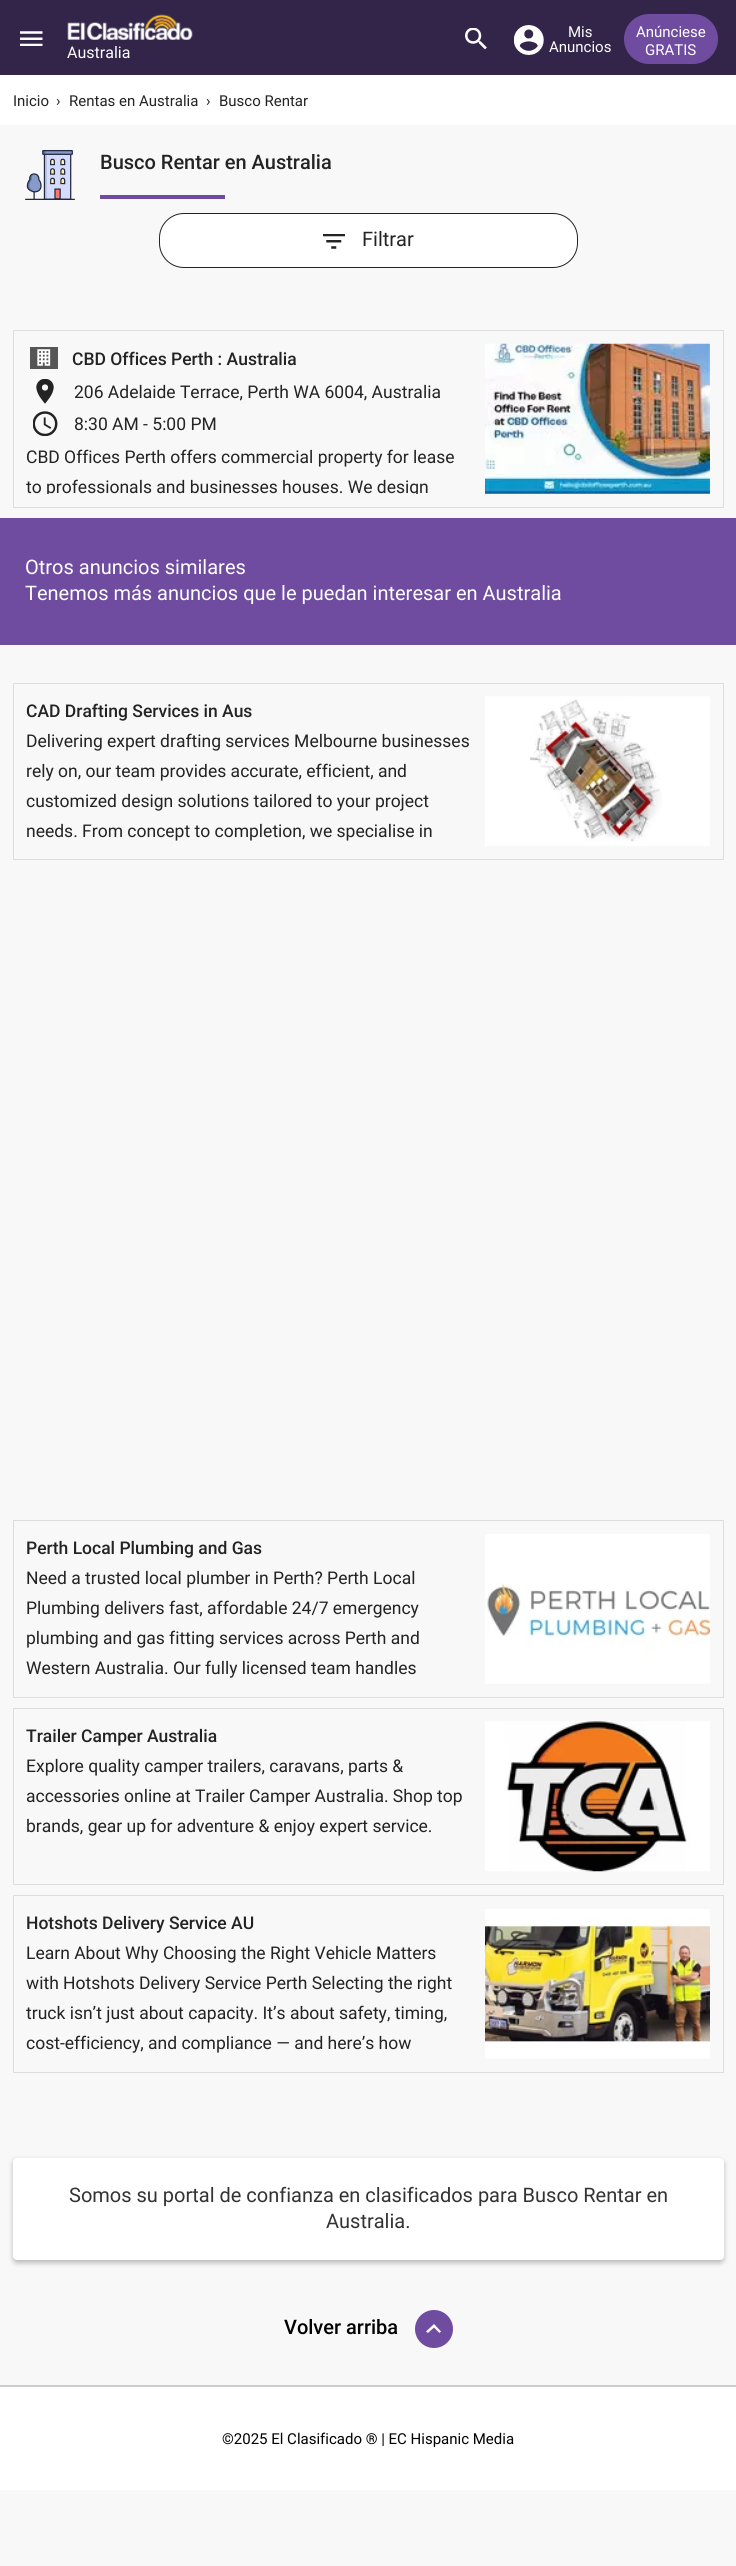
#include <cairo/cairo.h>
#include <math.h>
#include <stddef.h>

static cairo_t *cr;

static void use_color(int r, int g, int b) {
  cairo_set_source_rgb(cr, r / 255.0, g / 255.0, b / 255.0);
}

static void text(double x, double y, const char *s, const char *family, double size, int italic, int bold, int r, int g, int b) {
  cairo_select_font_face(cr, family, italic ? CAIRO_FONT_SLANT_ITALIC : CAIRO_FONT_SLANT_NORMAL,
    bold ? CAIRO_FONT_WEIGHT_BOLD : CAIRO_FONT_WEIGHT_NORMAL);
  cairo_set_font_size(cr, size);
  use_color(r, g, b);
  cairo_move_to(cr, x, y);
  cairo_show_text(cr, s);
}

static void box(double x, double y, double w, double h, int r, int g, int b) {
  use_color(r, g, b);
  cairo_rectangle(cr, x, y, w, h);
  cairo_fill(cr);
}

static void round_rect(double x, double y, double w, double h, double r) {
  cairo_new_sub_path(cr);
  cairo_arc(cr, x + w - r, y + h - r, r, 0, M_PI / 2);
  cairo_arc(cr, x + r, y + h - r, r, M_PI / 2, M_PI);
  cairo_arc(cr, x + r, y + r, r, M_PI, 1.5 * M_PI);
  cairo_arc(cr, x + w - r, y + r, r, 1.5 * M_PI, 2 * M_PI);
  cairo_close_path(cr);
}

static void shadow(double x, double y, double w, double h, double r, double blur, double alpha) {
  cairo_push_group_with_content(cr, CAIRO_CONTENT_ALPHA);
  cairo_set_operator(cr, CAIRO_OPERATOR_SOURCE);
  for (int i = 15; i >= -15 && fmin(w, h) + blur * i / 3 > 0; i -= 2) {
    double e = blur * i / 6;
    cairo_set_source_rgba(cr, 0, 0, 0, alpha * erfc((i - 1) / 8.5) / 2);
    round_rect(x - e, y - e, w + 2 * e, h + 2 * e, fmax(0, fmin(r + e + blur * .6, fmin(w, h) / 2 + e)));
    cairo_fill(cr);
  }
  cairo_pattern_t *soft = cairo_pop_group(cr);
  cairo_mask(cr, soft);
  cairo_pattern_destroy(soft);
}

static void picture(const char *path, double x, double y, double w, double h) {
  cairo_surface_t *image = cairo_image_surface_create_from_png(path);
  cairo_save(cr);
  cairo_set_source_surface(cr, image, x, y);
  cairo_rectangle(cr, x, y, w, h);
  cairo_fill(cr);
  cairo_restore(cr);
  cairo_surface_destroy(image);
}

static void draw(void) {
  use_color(248, 248, 248);
  cairo_paint(cr);
  box(0, 0, 736, 75, 50, 37, 73);
  picture("img_01.png", 20, 31, 23, 15);
  picture("img_02.png", 67, 14, 126, 26);
  picture("img_03.png", 465, 28, 22, 22);
  picture("img_04.png", 514, 25, 30, 30);
  use_color(112, 76, 161);
  round_rect(624, 14, 94, 50, 25);
  cairo_fill(cr);
  box(0, 75, 736, 50, 255, 255, 255);
  picture("img_05.png", 25, 150, 50, 50);
  box(100, 195, 125, 4, 112, 76, 161);
  use_color(255, 255, 255);
  round_rect(159.5, 213.5, 418, 54, 24.5);
  cairo_fill_preserve(cr);
  use_color(35, 35, 35);
  cairo_set_line_width(cr, 1);
  cairo_stroke(cr);
  picture("img_06.png", 323, 234, 22, 15);
  cairo_rectangle(cr, 13.5, 330.5, 710, 177);
  use_color(221, 221, 221);
  cairo_stroke(cr);
  picture("img_07.png", 30, 347, 28, 22);
  picture("img_08.png", 36, 379, 18, 25);
  picture("img_09.png", 33, 411, 25, 25);
  picture("img_10.png", 485, 343, 225, 151);
  box(0, 518, 736, 127, 112, 76, 161);
  cairo_rectangle(cr, 13.5, 683.5, 710, 176);
  use_color(221, 221, 221);
  cairo_stroke(cr);
  picture("img_11.png", 485, 696, 225, 150);
  cairo_rectangle(cr, 13.5, 1520.5, 710, 177);
  cairo_stroke(cr);
  picture("img_12.png", 485, 1534, 225, 150);
  cairo_rectangle(cr, 13.5, 1708.5, 710, 176);
  cairo_stroke(cr);
  picture("img_13.png", 485, 1721, 225, 151);
  cairo_rectangle(cr, 13.5, 1895.5, 710, 177);
  cairo_stroke(cr);
  picture("img_14.png", 485, 1909, 225, 150);
  use_color(0, 0, 0);
  shadow(13, 2160, 711, 103, 4, 2.5, 0.25);
  use_color(255, 255, 255);
  round_rect(13, 2158, 711, 102, 4);
  cairo_fill(cr);
  use_color(112, 76, 161);
  cairo_arc(cr, 434, 2329, 19, 0, 2 * M_PI);
  cairo_fill(cr);
  use_color(255, 255, 255);
  cairo_new_path(cr);
  cairo_move_to(cr, 428, 2333);
  cairo_line_to(cr, 426, 2331.5);
  cairo_line_to(cr, 434, 2324);
  cairo_line_to(cr, 441, 2331.5);
  cairo_line_to(cr, 439.5, 2333);
  cairo_line_to(cr, 434, 2327.5);
  cairo_close_path(cr);
  cairo_fill(cr);
  box(0, 2387, 736, 103, 255, 255, 255);
  box(0, 2385, 736, 2, 204, 204, 204);
  text(67, 58, "Australia", "Roboto", 16, 0, 0, 255, 255, 255);
  text(568, 37, "Mis", "Roboto", 15, 0, 0, 255, 255, 255);
  text(549, 52, "Anuncios", "Roboto", 15, 0, 0, 255, 255, 255);
  text(636, 37, "Anúnciese", "Roboto", 15, 0, 0, 255, 255, 255);
  text(645, 55, "GRATIS", "Roboto", 15, 0, 0, 255, 255, 255);
  text(13, 106, "Inicio", "Roboto", 15, 0, 0, 35, 35, 35);
  text(56, 106, "›", "Roboto", 15, 0, 0, 35, 35, 35);
  text(69, 106, "Rentas en Australia", "Roboto", 15, 0, 0, 35, 35, 35);
  text(206, 106, "›", "Roboto", 15, 0, 0, 35, 35, 35);
  text(219, 106, "Busco Rentar", "Roboto", 15, 0, 0, 35, 35, 35);
  text(100, 169, "Busco Rentar en Australia", "Roboto Medium", 20, 0, 0, 35, 35, 35);
  text(362, 246, "Filtrar", "Roboto", 20, 0, 0, 35, 35, 35);
  text(72, 365, "CBD Offices Perth : Australia", "Roboto Medium", 17.5, 0, 0, 35, 35, 35);
  text(74, 398, "206 Adelaide Terrace, Perth WA 6004, Australia", "Roboto", 17.5, 0, 0, 35, 35, 35);
  text(74, 430, "8:30 AM - 5:00 PM", "Roboto", 17.5, 0, 0, 35, 35, 35);
  text(26, 463, "CBD Offices Perth offers commercial property for lease", "Roboto", 17.5, 0, 0, 35, 35, 35);
  cairo_save(cr);
  cairo_rectangle(cr, 26, 344, 447, 150);
  cairo_clip(cr);
  text(26, 493, "to professionals and businesses houses. We design", "Roboto", 17.5, 0, 0, 35, 35, 35);
  cairo_restore(cr);
  text(25, 574, "Otros anuncios similares", "Roboto", 20, 0, 0, 255, 255, 255);
  text(25, 600, "Tenemos más anuncios que le puedan interesar en Australia", "Roboto", 20, 0, 0, 255, 255, 255);
  text(26, 717, "CAD Drafting Services in Aus", "Roboto Medium", 17.5, 0, 0, 35, 35, 35);
  text(26, 747, "Delivering expert drafting services Melbourne businesses", "Roboto", 17.5, 0, 0, 35, 35, 35);
  text(26, 777, "rely on, our team provides accurate, efficient, and", "Roboto", 17.5, 0, 0, 35, 35, 35);
  text(26, 807, "customized design solutions tailored to your project", "Roboto", 17.5, 0, 0, 35, 35, 35);
  text(26, 837, "needs. From concept to completion, we specialise in", "Roboto", 17.5, 0, 0, 35, 35, 35);
  text(26, 1554, "Perth Local Plumbing and Gas", "Roboto Medium", 17.5, 0, 0, 35, 35, 35);
  text(26, 1584, "Need a trusted local plumber in Perth? Perth Local", "Roboto", 17.5, 0, 0, 35, 35, 35);
  text(26, 1614, "Plumbing delivers fast, affordable 24/7 emergency", "Roboto", 17.5, 0, 0, 35, 35, 35);
  text(26, 1644, "plumbing and gas fitting services across Perth and", "Roboto", 17.5, 0, 0, 35, 35, 35);
  text(26, 1674, "Western Australia. Our fully licensed team handles", "Roboto", 17.5, 0, 0, 35, 35, 35);
  text(26, 1742, "Trailer Camper Australia", "Roboto Medium", 17.5, 0, 0, 35, 35, 35);
  text(26, 1772, "Explore quality camper trailers, caravans, parts &", "Roboto", 17.5, 0, 0, 35, 35, 35);
  text(26, 1802, "accessories online at Trailer Camper Australia. Shop top", "Roboto", 17.5, 0, 0, 35, 35, 35);
  text(26, 1832, "brands, gear up for adventure & enjoy expert service.", "Roboto", 17.5, 0, 0, 35, 35, 35);
  text(26, 1929, "Hotshots Delivery Service AU", "Roboto Medium", 17.5, 0, 0, 35, 35, 35);
  text(26, 1959, "Learn About Why Choosing the Right Vehicle Matters", "Roboto", 17.5, 0, 0, 35, 35, 35);
  text(26, 1989, "with Hotshots Delivery Service Perth Selecting the right", "Roboto", 17.5, 0, 0, 35, 35, 35);
  text(26, 2019, "truck isn’t just about capacity. It’s about safety, timing,", "Roboto", 17.5, 0, 0, 35, 35, 35);
  text(26, 2049, "cost-efficiency, and compliance — and here’s how", "Roboto", 17.5, 0, 0, 35, 35, 35);
  text(69, 2202, "Somos su portal de confianza en clasificados para Busco Rentar en", "Roboto", 20, 0, 0, 51, 51, 51);
  text(326, 2228, "Australia.", "Roboto", 20, 0, 0, 51, 51, 51);
  text(284, 2334, "Volver arriba", "Roboto Medium", 20, 0, 0, 0, 0, 0);
  text(222, 2444, "©2025 El Clasificado ® | EC Hispanic Media", "Roboto", 15, 0, 0, 0, 0, 0);
}

int main(void) {
  cairo_surface_t *surface = cairo_image_surface_create(CAIRO_FORMAT_RGB24, 736, 2566);
  cr = cairo_create(surface);
  cairo_font_options_t *options = cairo_font_options_create();
  cairo_font_options_set_hint_metrics(options, CAIRO_HINT_METRICS_OFF);
  cairo_font_options_set_hint_style(options, CAIRO_HINT_STYLE_NONE);
  cairo_set_font_options(cr, options);
  cairo_set_miter_limit(cr, 4);
  draw();
  cairo_surface_write_to_png(surface, "out.png");
  cairo_font_options_destroy(options);
  cairo_destroy(cr);
  cairo_surface_destroy(surface);
  return 0;
}
